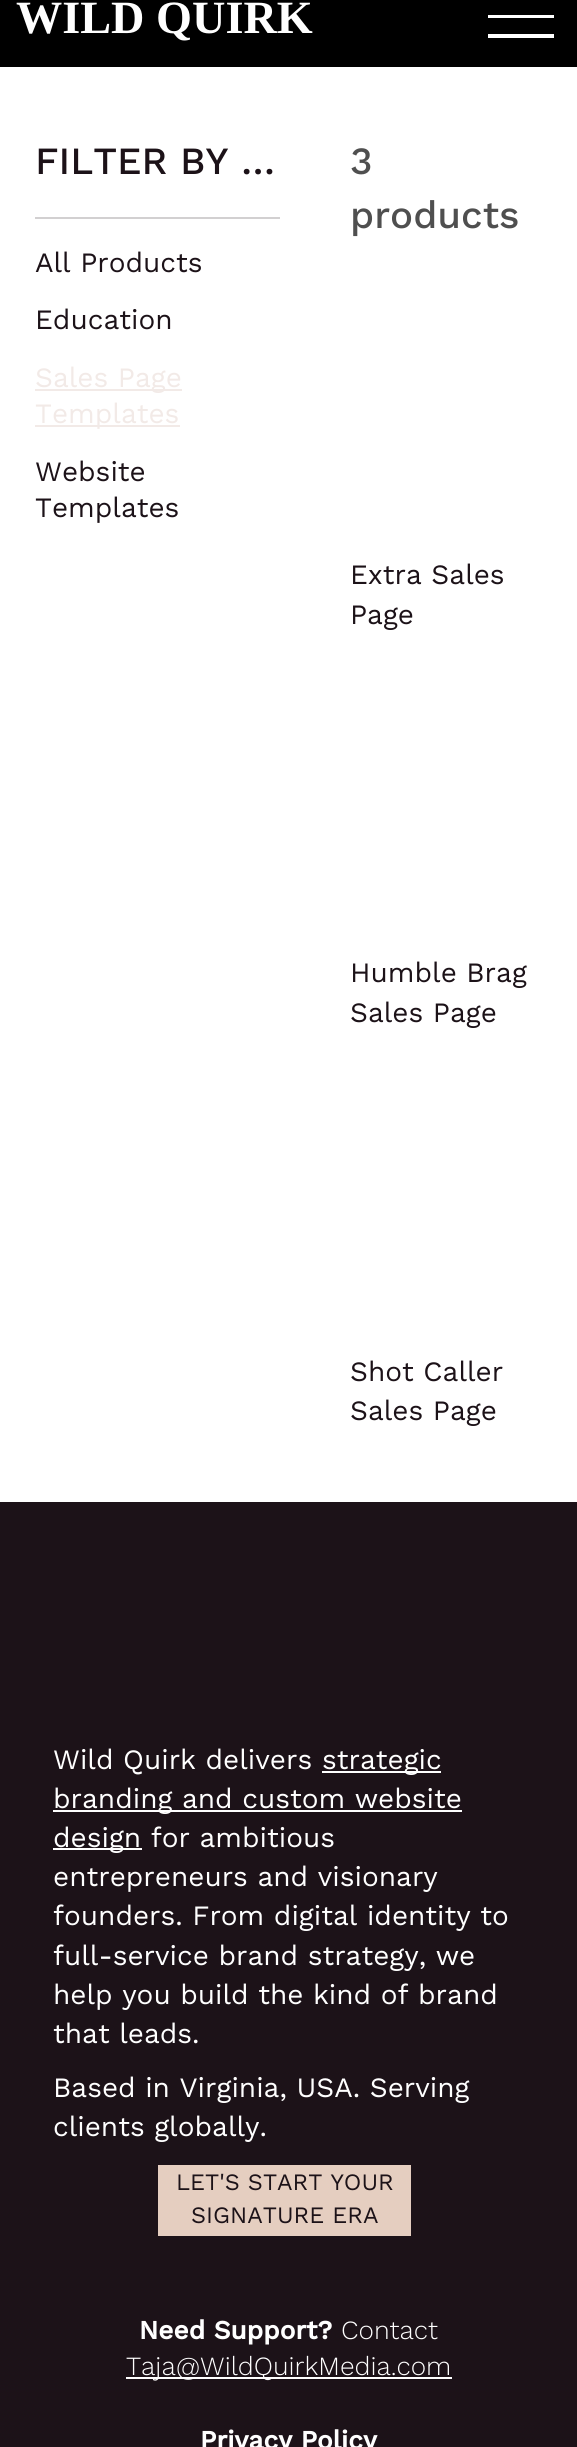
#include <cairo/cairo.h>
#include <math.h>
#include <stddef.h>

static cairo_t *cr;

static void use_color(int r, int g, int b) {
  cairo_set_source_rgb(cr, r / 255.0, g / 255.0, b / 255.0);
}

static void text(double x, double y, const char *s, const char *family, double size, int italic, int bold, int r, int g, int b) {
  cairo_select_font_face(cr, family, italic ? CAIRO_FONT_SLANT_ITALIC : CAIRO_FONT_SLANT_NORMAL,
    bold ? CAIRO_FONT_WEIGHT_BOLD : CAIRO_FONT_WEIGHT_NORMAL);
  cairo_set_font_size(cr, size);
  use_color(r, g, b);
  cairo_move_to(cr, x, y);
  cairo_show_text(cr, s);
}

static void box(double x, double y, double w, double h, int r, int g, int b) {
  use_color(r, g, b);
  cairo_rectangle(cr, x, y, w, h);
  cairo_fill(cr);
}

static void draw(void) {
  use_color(255, 255, 255);
  cairo_paint(cr);
  box(0, 0, 577, 67, 0, 0, 0);
  box(488, 15, 66, 3, 255, 255, 255);
  box(488, 34, 66, 4, 255, 255, 255);
  box(35, 217, 245, 2, 210, 208, 209);
  box(35, 389, 147, 2, 242, 234, 231);
  box(35, 425, 145, 2, 242, 234, 231);
  box(0, 1502, 577, 945, 28, 18, 24);
  box(322, 1771, 119, 2, 255, 255, 255);
  box(53, 1810, 409, 2, 255, 255, 255);
  box(53, 1848, 89, 2, 255, 255, 255);
  box(158, 2165, 253, 71, 229, 206, 192);
  box(126, 2377, 326, 2, 255, 255, 255);
  text(16, 33, "WILD QUIRK", "Liberation Serif", 46.25, 0, 1, 255, 255, 255);
  text(35, 174, "FILTER BY …", "Work Sans Medium", 38.5, 0, 0, 28, 18, 24);
  text(35, 272, "All Products", "Work Sans", 28, 0, 0, 28, 18, 24);
  text(35, 329, "Education", "Work Sans", 28, 0, 0, 28, 18, 24);
  text(35, 387, "Sales Page", "Work Sans", 28, 0, 0, 242, 234, 231);
  text(35, 423, "Templates", "Work Sans", 28, 0, 0, 242, 234, 231);
  text(35, 481, "Website", "Work Sans", 28, 0, 0, 28, 18, 24);
  text(35, 517, "Templates", "Work Sans", 28, 0, 0, 28, 18, 24);
  text(350, 174, "3", "Work Sans Medium", 38.5, 0, 0, 79, 79, 79);
  text(350, 228, "products", "Work Sans Medium", 38.5, 0, 0, 79, 79, 79);
  text(350, 584, "Extra Sales", "Work Sans", 28, 0, 0, 28, 18, 24);
  text(350, 624, "Page", "Work Sans", 28, 0, 0, 28, 18, 24);
  text(350, 982, "Humble Brag", "Work Sans", 28, 0, 0, 28, 18, 24);
  text(350, 1022, "Sales Page", "Work Sans", 28, 0, 0, 28, 18, 24);
  text(350, 1381, "Shot Caller", "Work Sans", 28, 0, 0, 28, 18, 24);
  text(350, 1420, "Sales Page", "Work Sans", 28, 0, 0, 28, 18, 24);
  text(53, 1769, "Wild Quirk delivers", "Work Sans", 28, 0, 0, 255, 255, 255);
  text(322, 1769, "strategic", "Work Sans", 28, 0, 0, 255, 255, 255);
  text(53, 1808, "branding and custom website", "Work Sans", 28, 0, 0, 255, 255, 255);
  text(53, 1847, "design for ambitious", "Work Sans", 28, 0, 0, 255, 255, 255);
  text(53, 1886, "entrepreneurs and visionary", "Work Sans", 28, 0, 0, 255, 255, 255);
  text(53, 1925, "founders. From digital identity to", "Work Sans", 28, 0, 0, 255, 255, 255);
  text(53, 1965, "full-service brand strategy, we", "Work Sans", 28, 0, 0, 255, 255, 255);
  text(53, 2004, "help you build the kind of brand", "Work Sans", 28, 0, 0, 255, 255, 255);
  text(53, 2043, "that leads.", "Work Sans", 28, 0, 0, 255, 255, 255);
  text(53, 2097, "Based in Virginia, USA. Serving", "Work Sans", 28, 0, 0, 255, 255, 255);
  text(53, 2136, "clients globally.", "Work Sans", 28, 0, 0, 255, 255, 255);
  text(176, 2190, "LET'S START YOUR", "Work Sans", 23.5, 0, 0, 28, 18, 24);
  text(191, 2223, "SIGNATURE ERA", "Work Sans", 23.5, 0, 0, 28, 18, 24);
  text(139, 2339, "Need Support?", "Work Sans", 26.25, 0, 1, 255, 255, 255);
  text(341, 2339, "Contact", "Work Sans Light", 26.25, 0, 0, 255, 255, 255);
  text(126, 2375, "Taja@WildQuirkMedia.com", "Work Sans Light", 26.25, 0, 0, 255, 255, 255);
  text(200, 2449, "Privacy Policy", "Work Sans", 26.25, 0, 1, 255, 255, 255);
}

int main(void) {
  cairo_surface_t *surface = cairo_image_surface_create(CAIRO_FORMAT_RGB24, 577, 2447);
  cr = cairo_create(surface);
  cairo_font_options_t *options = cairo_font_options_create();
  cairo_font_options_set_hint_metrics(options, CAIRO_HINT_METRICS_OFF);
  cairo_font_options_set_hint_style(options, CAIRO_HINT_STYLE_NONE);
  cairo_set_font_options(cr, options);
  cairo_set_miter_limit(cr, 4);
  draw();
  cairo_surface_write_to_png(surface, "out.png");
  cairo_font_options_destroy(options);
  cairo_destroy(cr);
  cairo_surface_destroy(surface);
  return 0;
}
